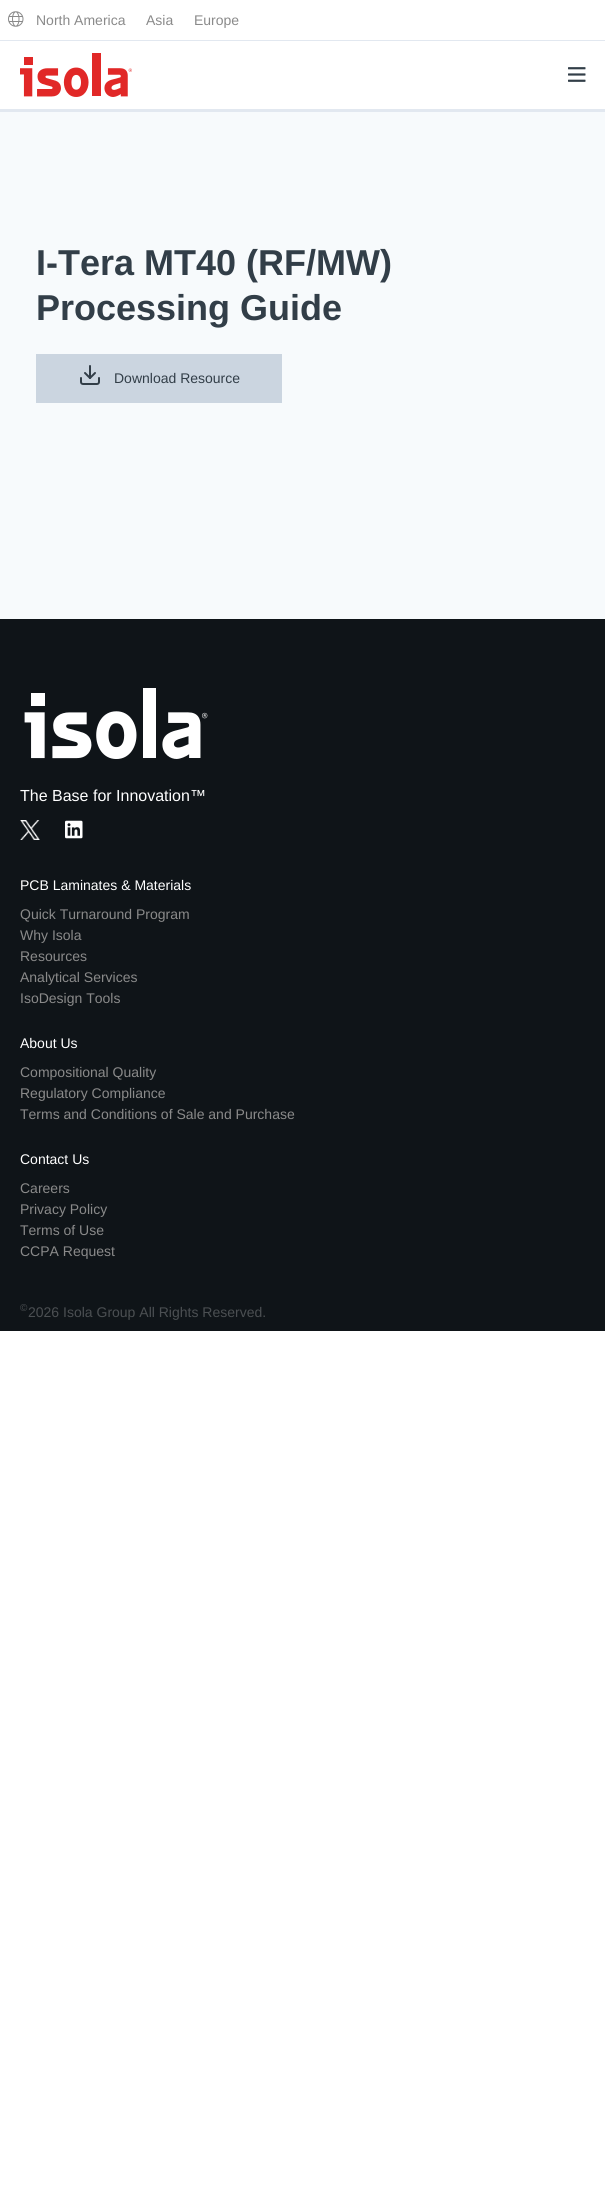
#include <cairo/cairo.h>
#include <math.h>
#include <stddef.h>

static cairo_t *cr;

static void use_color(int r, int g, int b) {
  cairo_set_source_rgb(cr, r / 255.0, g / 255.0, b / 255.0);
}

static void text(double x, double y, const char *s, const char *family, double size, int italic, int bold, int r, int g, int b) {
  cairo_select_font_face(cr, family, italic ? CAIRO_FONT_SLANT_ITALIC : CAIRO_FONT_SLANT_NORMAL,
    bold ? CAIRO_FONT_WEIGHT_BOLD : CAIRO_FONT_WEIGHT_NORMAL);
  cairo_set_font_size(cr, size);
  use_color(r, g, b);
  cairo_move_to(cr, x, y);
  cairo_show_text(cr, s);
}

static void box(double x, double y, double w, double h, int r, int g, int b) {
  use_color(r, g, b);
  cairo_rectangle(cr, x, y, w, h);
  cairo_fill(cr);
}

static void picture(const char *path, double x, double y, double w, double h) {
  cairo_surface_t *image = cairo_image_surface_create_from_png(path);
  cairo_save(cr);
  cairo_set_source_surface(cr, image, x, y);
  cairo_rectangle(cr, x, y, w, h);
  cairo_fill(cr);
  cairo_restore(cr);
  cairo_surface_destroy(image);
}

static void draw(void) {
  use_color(255, 255, 255);
  cairo_paint(cr);
  picture("img_01.png", 8, 11, 16, 16);
  box(0, 40, 605, 1, 226, 232, 240);
  box(0, 109, 605, 3, 226, 232, 240);
  picture("img_02.png", 20, 53, 112, 44);
  picture("img_03.png", 568, 67, 18, 15);
  box(0, 112, 605, 507, 247, 250, 252);
  box(36, 354, 246, 49, 203, 213, 224);
  picture("img_04.png", 80, 365, 20, 20);
  box(0, 619, 605, 712, 15, 20, 24);
  picture("img_05.png", 24, 688, 184, 71);
  picture("img_06.png", 20, 820, 20, 20);
  picture("img_07.png", 65, 820, 18, 19);
  text(36, 25, "North America", "Liberation Sans", 14, 0, 0, 138, 138, 138);
  text(146, 25, "Asia", "Liberation Sans", 14, 0, 0, 138, 138, 138);
  text(194, 25, "Europe", "Liberation Sans", 14, 0, 0, 138, 138, 138);
  text(36, 275, "I-Tera MT40 (RF/MW)", "Liberation Sans", 36, 0, 1, 50, 62, 72);
  text(36, 320, "Processing Guide", "Liberation Sans", 36, 0, 1, 50, 62, 72);
  text(114, 383, "Download Resource", "Liberation Sans", 14, 0, 0, 50, 62, 72);
  text(20, 801, "The Base for Innovation™", "Liberation Sans", 16, 0, 0, 255, 255, 255);
  text(20, 890, "PCB Laminates & Materials", "Liberation Sans", 14, 0, 0, 255, 255, 255);
  text(20, 919, "Quick Turnaround Program", "Liberation Sans", 14, 0, 0, 138, 138, 138);
  text(20, 940, "Why Isola", "Liberation Sans", 14, 0, 0, 138, 138, 138);
  text(20, 961, "Resources", "Liberation Sans", 14, 0, 0, 138, 138, 138);
  text(20, 982, "Analytical Services", "Liberation Sans", 14, 0, 0, 138, 138, 138);
  text(20, 1003, "IsoDesign Tools", "Liberation Sans", 14, 0, 0, 138, 138, 138);
  text(20, 1048, "About Us", "Liberation Sans", 14, 0, 0, 255, 255, 255);
  text(20, 1077, "Compositional Quality", "Liberation Sans", 14, 0, 0, 138, 138, 138);
  text(20, 1098, "Regulatory Compliance", "Liberation Sans", 14, 0, 0, 138, 138, 138);
  text(20, 1119, "Terms and Conditions of Sale and Purchase", "Liberation Sans", 14, 0, 0, 138, 138, 138);
  text(20, 1164, "Contact Us", "Liberation Sans", 14, 0, 0, 255, 255, 255);
  text(20, 1193, "Careers", "Liberation Sans", 14, 0, 0, 138, 138, 138);
  text(20, 1214, "Privacy Policy", "Liberation Sans", 14, 0, 0, 138, 138, 138);
  text(20, 1235, "Terms of Use", "Liberation Sans", 14, 0, 0, 138, 138, 138);
  text(20, 1256, "CCPA Request", "Liberation Sans", 14, 0, 0, 138, 138, 138);
  text(20, 1311, "©", "Liberation Sans", 10, 0, 0, 75, 79, 82);
  text(28, 1317, "2026 Isola Group All Rights Reserved.", "Liberation Sans", 14, 0, 0, 75, 79, 82);
}

int main(void) {
  cairo_surface_t *surface = cairo_image_surface_create(CAIRO_FORMAT_RGB24, 605, 2186);
  cr = cairo_create(surface);
  cairo_font_options_t *options = cairo_font_options_create();
  cairo_font_options_set_hint_metrics(options, CAIRO_HINT_METRICS_OFF);
  cairo_font_options_set_hint_style(options, CAIRO_HINT_STYLE_NONE);
  cairo_set_font_options(cr, options);
  cairo_set_miter_limit(cr, 4);
  draw();
  cairo_surface_write_to_png(surface, "out.png");
  cairo_font_options_destroy(options);
  cairo_destroy(cr);
  cairo_surface_destroy(surface);
  return 0;
}
